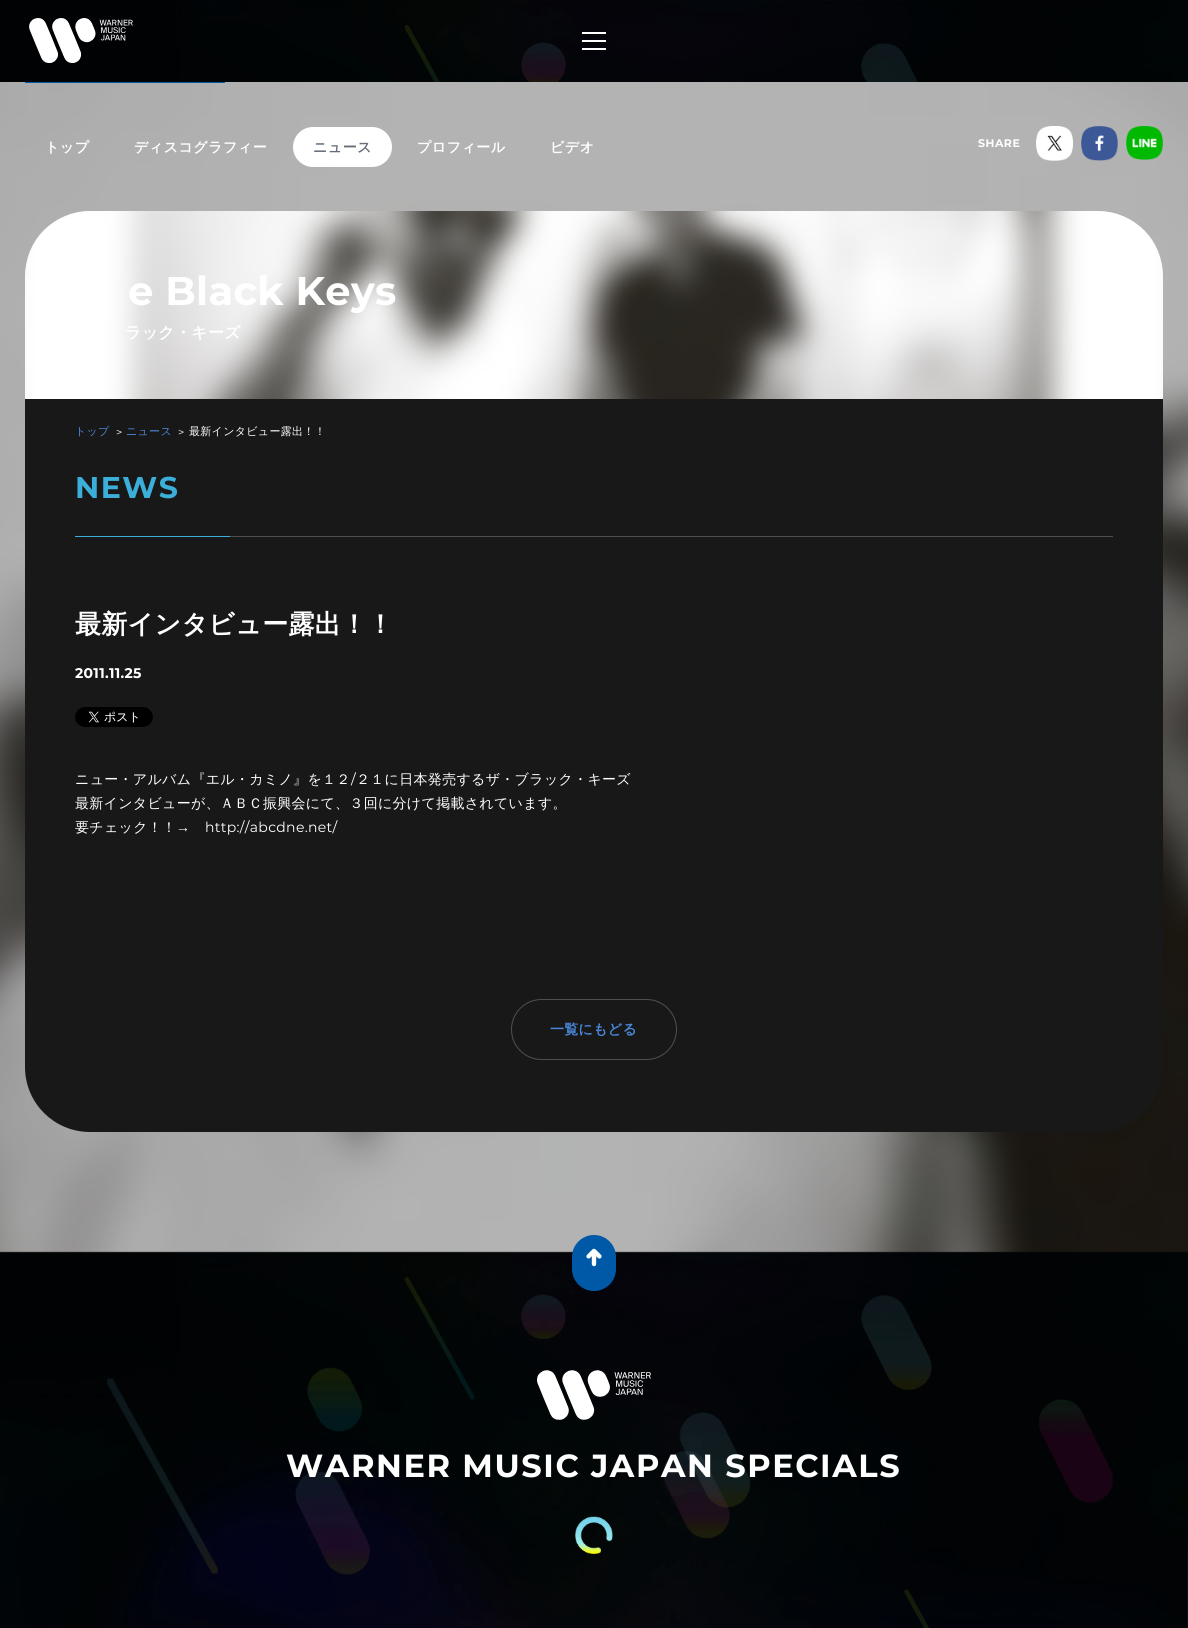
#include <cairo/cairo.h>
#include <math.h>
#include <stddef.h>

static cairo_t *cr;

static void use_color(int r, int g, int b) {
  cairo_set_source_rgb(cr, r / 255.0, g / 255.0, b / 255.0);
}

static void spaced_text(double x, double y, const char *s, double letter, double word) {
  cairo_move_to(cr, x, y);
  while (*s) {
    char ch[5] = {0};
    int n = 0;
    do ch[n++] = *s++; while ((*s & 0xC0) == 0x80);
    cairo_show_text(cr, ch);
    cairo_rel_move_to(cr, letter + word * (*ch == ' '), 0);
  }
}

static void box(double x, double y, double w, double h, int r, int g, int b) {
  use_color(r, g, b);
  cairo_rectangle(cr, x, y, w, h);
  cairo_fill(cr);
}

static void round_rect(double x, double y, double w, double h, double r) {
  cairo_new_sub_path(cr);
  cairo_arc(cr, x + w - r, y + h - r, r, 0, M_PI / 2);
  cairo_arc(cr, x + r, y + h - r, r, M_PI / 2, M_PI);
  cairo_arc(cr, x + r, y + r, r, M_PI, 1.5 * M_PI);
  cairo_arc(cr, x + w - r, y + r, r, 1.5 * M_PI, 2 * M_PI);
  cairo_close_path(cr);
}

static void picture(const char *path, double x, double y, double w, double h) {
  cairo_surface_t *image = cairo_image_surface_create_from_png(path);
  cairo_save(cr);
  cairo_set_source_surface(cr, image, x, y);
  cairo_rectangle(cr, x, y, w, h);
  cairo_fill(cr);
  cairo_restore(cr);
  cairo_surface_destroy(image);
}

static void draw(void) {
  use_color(255, 255, 255);
  cairo_paint(cr);
  picture("img_01.png", 0, 0, 1188, 82);
  picture("img_02.png", 29, 18, 104, 45);
  box(582, 32, 24, 2, 255, 255, 255);
  box(582, 40, 24, 2, 255, 255, 255);
  box(582, 48, 24, 2, 255, 255, 255);
  picture("img_03.png", 0, 82, 1188, 1546);
  box(25, 82, 200, 1, 0, 89, 167);
  use_color(255, 255, 255);
  round_rect(293, 127, 99, 40, 20);
  cairo_fill(cr);
  picture("img_04.png", 1036, 126, 37, 35);
  picture("img_05.png", 1081, 126, 37, 35);
  picture("img_06.png", 1126, 126, 37, 34);
  picture("img_07.png", 25, 211, 1138, 188);
  use_color(24, 24, 24);
  cairo_new_path(cr);
  cairo_move_to(cr, 25, 399);
  cairo_line_to(cr, 1163, 399);
  cairo_line_to(cr, 1163, 1067);
  cairo_curve_to(cr, 1163, 1103, 1134, 1132, 1098, 1132);
  cairo_line_to(cr, 90, 1132);
  cairo_curve_to(cr, 54, 1132, 25, 1103, 25, 1067);
  cairo_close_path(cr);
  cairo_fill(cr);
  box(230, 536, 883, 1, 79, 79, 79);
  box(75, 536, 155, 1, 59, 175, 218);
  picture("img_08.png", 75, 707, 78, 20);
  round_rect(511.5, 999.5, 165, 60, 30);
  use_color(79, 79, 79);
  cairo_set_line_width(cr, 1);
  cairo_stroke(cr);
  picture("img_09.png", 0, 1251, 1188, 377);
  use_color(0, 89, 167);
  round_rect(572, 1235, 44, 56, 22);
  cairo_fill(cr);
  picture("img_10.png", 586, 1248, 16, 19);
  picture("img_11.png", 537, 1370, 114, 50);
  picture("img_12.png", 575, 1516, 38, 38);
  cairo_select_font_face(cr, "WenQuanYi Zen Hei", CAIRO_FONT_SLANT_NORMAL, CAIRO_FONT_WEIGHT_BOLD);
  cairo_set_font_size(cr, 14);
  use_color(255, 255, 255);
  spaced_text(45, 152, "トップ", 0.5, 0);
  spaced_text(134, 152, "ディスコグラフィー", 0.5, 0);
  use_color(101, 109, 120);
  spaced_text(313, 152, "ニュース", 0.5, 0);
  use_color(255, 255, 255);
  spaced_text(417, 152, "プロフィール", 0.5, 0);
  spaced_text(550, 152, "ビデオ", 0.5, 0);
  cairo_select_font_face(cr, "Montserrat", CAIRO_FONT_SLANT_NORMAL, CAIRO_FONT_WEIGHT_BOLD);
  cairo_set_font_size(cr, 11);
  spaced_text(978, 147, "SHARE", 0.5, 0);
  cairo_set_font_size(cr, 40);
  spaced_text(128, 305, "e Black Keys", 0.3, 0);
  cairo_select_font_face(cr, "WenQuanYi Zen Hei", CAIRO_FONT_SLANT_NORMAL, CAIRO_FONT_WEIGHT_BOLD);
  cairo_set_font_size(cr, 16);
  spaced_text(125, 338, "ラック・キーズ", 0.3, 0);
  cairo_select_font_face(cr, "WenQuanYi Zen Hei Medium", CAIRO_FONT_SLANT_NORMAL, CAIRO_FONT_WEIGHT_NORMAL);
  cairo_set_font_size(cr, 11);
  use_color(74, 137, 220);
  spaced_text(75, 435, "トップ", 0.3, 0);
  cairo_select_font_face(cr, "Montserrat", CAIRO_FONT_SLANT_NORMAL, CAIRO_FONT_WEIGHT_NORMAL);
  use_color(255, 255, 255);
  spaced_text(116, 436, ">", 0.3, 0);
  cairo_select_font_face(cr, "WenQuanYi Zen Hei Medium", CAIRO_FONT_SLANT_NORMAL, CAIRO_FONT_WEIGHT_NORMAL);
  use_color(74, 137, 220);
  spaced_text(126, 435, "ニュース", 0.3, 0);
  cairo_select_font_face(cr, "Montserrat", CAIRO_FONT_SLANT_NORMAL, CAIRO_FONT_WEIGHT_NORMAL);
  use_color(255, 255, 255);
  spaced_text(178, 436, ">", 0.3, 0);
  cairo_select_font_face(cr, "WenQuanYi Zen Hei Medium", CAIRO_FONT_SLANT_NORMAL, CAIRO_FONT_WEIGHT_NORMAL);
  spaced_text(189, 435, "最新インタビュー露出！！", 0.3, 0);
  cairo_select_font_face(cr, "Montserrat", CAIRO_FONT_SLANT_NORMAL, CAIRO_FONT_WEIGHT_BOLD);
  cairo_set_font_size(cr, 30);
  use_color(59, 175, 218);
  spaced_text(75, 498, "NEWS", 1.5, 0);
  cairo_select_font_face(cr, "WenQuanYi Zen Hei", CAIRO_FONT_SLANT_NORMAL, CAIRO_FONT_WEIGHT_BOLD);
  cairo_set_font_size(cr, 26);
  use_color(255, 255, 255);
  spaced_text(75, 633, "最新インタビュー露出！！", 0.3, 0);
  cairo_select_font_face(cr, "Montserrat", CAIRO_FONT_SLANT_NORMAL, CAIRO_FONT_WEIGHT_BOLD);
  cairo_set_font_size(cr, 14);
  spaced_text(75, 678, "2011.11.25", 0.3, 0);
  cairo_select_font_face(cr, "WenQuanYi Zen Hei Medium", CAIRO_FONT_SLANT_NORMAL, CAIRO_FONT_WEIGHT_NORMAL);
  spaced_text(75, 784, "ニュー・アルバム『エル・カミノ』を１２", 0.3, 0);
  cairo_select_font_face(cr, "Montserrat", CAIRO_FONT_SLANT_NORMAL, CAIRO_FONT_WEIGHT_NORMAL);
  spaced_text(351, 784, "/", 0.3, 0);
  cairo_select_font_face(cr, "WenQuanYi Zen Hei Medium", CAIRO_FONT_SLANT_NORMAL, CAIRO_FONT_WEIGHT_NORMAL);
  spaced_text(356, 784, "２１に日本発売するザ・ブラック・キーズ", 0.3, 0);
  spaced_text(75, 808, "最新インタビューが、ＡＢＣ振興会にて、３回に分けて掲載されています。", 0.3, 0);
  spaced_text(75, 832, "要チェック！！", 0.3, 0);
  cairo_select_font_face(cr, "Liberation Sans", CAIRO_FONT_SLANT_NORMAL, CAIRO_FONT_WEIGHT_NORMAL);
  spaced_text(176, 832, "→", 0.3, 0);
  cairo_select_font_face(cr, "Montserrat", CAIRO_FONT_SLANT_NORMAL, CAIRO_FONT_WEIGHT_NORMAL);
  spaced_text(205, 832, "http://abcdne.net/", 0.3, 0);
  cairo_select_font_face(cr, "WenQuanYi Zen Hei", CAIRO_FONT_SLANT_NORMAL, CAIRO_FONT_WEIGHT_BOLD);
  use_color(74, 137, 220);
  spaced_text(550, 1034, "一覧にもどる", 0.3, 0);
  cairo_select_font_face(cr, "Montserrat", CAIRO_FONT_SLANT_NORMAL, CAIRO_FONT_WEIGHT_BOLD);
  cairo_set_font_size(cr, 32);
  use_color(255, 255, 255);
  spaced_text(286, 1477, "WARNER MUSIC JAPAN SPECIALS", 1.6, 0);
}

int main(void) {
  cairo_surface_t *surface = cairo_image_surface_create(CAIRO_FORMAT_RGB24, 1188, 1628);
  cr = cairo_create(surface);
  cairo_font_options_t *options = cairo_font_options_create();
  cairo_font_options_set_hint_metrics(options, CAIRO_HINT_METRICS_OFF);
  cairo_font_options_set_hint_style(options, CAIRO_HINT_STYLE_NONE);
  cairo_set_font_options(cr, options);
  cairo_set_miter_limit(cr, 4);
  draw();
  cairo_surface_write_to_png(surface, "out.png");
  cairo_font_options_destroy(options);
  cairo_destroy(cr);
  cairo_surface_destroy(surface);
  return 0;
}
